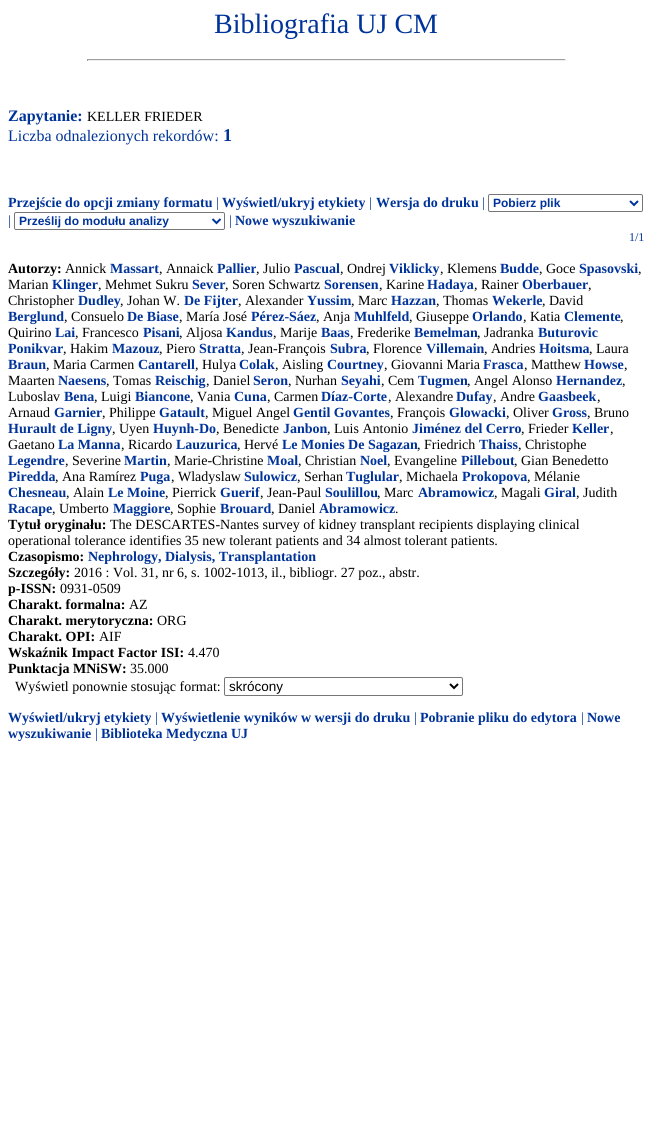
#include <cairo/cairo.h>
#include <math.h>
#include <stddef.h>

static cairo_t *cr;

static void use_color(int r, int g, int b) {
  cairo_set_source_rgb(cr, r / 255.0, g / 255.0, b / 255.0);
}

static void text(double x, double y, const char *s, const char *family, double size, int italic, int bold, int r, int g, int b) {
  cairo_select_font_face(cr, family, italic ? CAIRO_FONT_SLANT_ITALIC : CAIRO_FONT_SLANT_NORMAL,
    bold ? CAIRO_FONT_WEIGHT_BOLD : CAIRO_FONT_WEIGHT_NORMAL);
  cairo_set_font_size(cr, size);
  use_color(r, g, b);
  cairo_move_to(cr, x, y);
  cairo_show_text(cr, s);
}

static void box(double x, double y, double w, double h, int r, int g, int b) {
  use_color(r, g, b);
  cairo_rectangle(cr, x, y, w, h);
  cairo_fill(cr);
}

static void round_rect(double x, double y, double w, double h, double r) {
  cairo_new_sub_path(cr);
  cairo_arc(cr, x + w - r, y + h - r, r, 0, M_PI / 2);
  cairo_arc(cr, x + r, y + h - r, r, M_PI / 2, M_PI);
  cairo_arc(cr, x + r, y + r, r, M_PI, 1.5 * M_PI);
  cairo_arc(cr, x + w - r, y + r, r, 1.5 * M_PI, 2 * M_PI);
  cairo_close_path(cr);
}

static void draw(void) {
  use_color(255, 255, 255);
  cairo_paint(cr);
  box(87, 59, 479, 1, 159, 159, 159);
  box(565, 59, 1, 2, 238, 238, 238);
  box(87, 60, 479, 1, 238, 238, 238);
  box(87, 59, 1, 2, 159, 159, 159);
  round_rect(488.5, 194.5, 154, 17, 1.5);
  use_color(118, 118, 118);
  cairo_set_line_width(cr, 1);
  cairo_stroke(cr);
  cairo_new_path(cr);
  cairo_move_to(cr, 630, 201);
  cairo_line_to(cr, 634, 205);
  cairo_line_to(cr, 638, 201);
  use_color(0, 51, 153);
  cairo_set_line_width(cr, 2);
  cairo_stroke(cr);
  round_rect(14.5, 212.5, 210, 17, 1.5);
  use_color(118, 118, 118);
  cairo_set_line_width(cr, 1);
  cairo_stroke(cr);
  cairo_new_path(cr);
  cairo_move_to(cr, 212.5, 219);
  cairo_line_to(cr, 216.5, 223);
  cairo_line_to(cr, 220.5, 219);
  use_color(0, 51, 153);
  cairo_set_line_width(cr, 2);
  cairo_stroke(cr);
  round_rect(224.5, 677.5, 238, 18, 1.5);
  use_color(118, 118, 118);
  cairo_set_line_width(cr, 1);
  cairo_stroke(cr);
  cairo_new_path(cr);
  cairo_move_to(cr, 450, 684);
  cairo_line_to(cr, 454, 688);
  cairo_line_to(cr, 458, 684);
  use_color(0, 0, 0);
  cairo_set_line_width(cr, 2);
  cairo_stroke(cr);
  text(214, 33, "Bibliografia UJ CM", "Liberation Serif", 28, 0, 0, 0, 51, 153);
  text(8, 121, "Zapytanie:", "Liberation Serif", 16, 0, 1, 0, 51, 153);
  text(87, 121, "KELLER FRIEDER", "Liberation Serif", 14, 0, 0, 0, 0, 0);
  text(8, 141, "Liczba odnalezionych rekordów:", "Liberation Serif", 16, 0, 0, 0, 51, 153);
  text(223, 141, "1", "Liberation Serif", 18, 0, 1, 0, 51, 153);
  text(8, 207, "Przejście do opcji zmiany formatu", "Liberation Serif", 14, 0, 1, 0, 51, 153);
  text(216, 207, "|", "Liberation Serif", 14, 0, 0, 0, 51, 153);
  text(222, 207, "Wyświetl/ukryj etykiety", "Liberation Serif", 14, 0, 1, 0, 51, 153);
  text(369, 207, "|", "Liberation Serif", 14, 0, 0, 0, 51, 153);
  text(376, 207, "Wersja do druku", "Liberation Serif", 14, 0, 1, 0, 51, 153);
  text(482, 207, "|", "Liberation Serif", 14, 0, 0, 0, 51, 153);
  text(493, 207, "Pobierz plik", "Liberation Sans", 12, 0, 1, 0, 51, 153);
  text(8, 225, "|", "Liberation Serif", 14, 0, 0, 0, 51, 153);
  text(19, 225, "Prześlij do modułu analizy", "Liberation Sans", 12, 0, 1, 0, 51, 153);
  text(229, 225, "|", "Liberation Serif", 14, 0, 0, 0, 51, 153);
  text(235, 225, "Nowe wyszukiwanie", "Liberation Serif", 14, 0, 1, 0, 51, 153);
  text(629, 241, "1/1", "Liberation Serif", 12, 0, 0, 0, 51, 153);
  text(8, 273, "Autorzy:", "Liberation Serif", 14, 0, 1, 0, 0, 0);
  text(65, 273, "Annick", "Liberation Serif", 14, 0, 0, 0, 0, 0);
  text(110, 273, "Massart", "Liberation Serif", 14, 0, 1, 0, 51, 153);
  text(159, 273, ", Annaick", "Liberation Serif", 14, 0, 0, 0, 0, 0);
  text(217, 273, "Pallier", "Liberation Serif", 14, 0, 1, 0, 51, 153);
  text(256, 273, ", Julio", "Liberation Serif", 14, 0, 0, 0, 0, 0);
  text(294, 273, "Pascual", "Liberation Serif", 14, 0, 1, 0, 51, 153);
  text(340, 273, ", Ondrej", "Liberation Serif", 14, 0, 0, 0, 0, 0);
  text(389, 273, "Viklicky", "Liberation Serif", 14, 0, 1, 0, 51, 153);
  text(440, 273, ", Klemens", "Liberation Serif", 14, 0, 0, 0, 0, 0);
  text(500, 273, "Budde", "Liberation Serif", 14, 0, 1, 0, 51, 153);
  text(539, 273, ", Goce", "Liberation Serif", 14, 0, 0, 0, 0, 0);
  text(579, 273, "Spasovski", "Liberation Serif", 14, 0, 1, 0, 51, 153);
  text(638, 273, ",", "Liberation Serif", 14, 0, 0, 0, 0, 0);
  text(8, 289, "Marian", "Liberation Serif", 14, 0, 0, 0, 0, 0);
  text(52, 289, "Klinger", "Liberation Serif", 14, 0, 1, 0, 51, 153);
  text(98, 289, ", Mehmet Sukru", "Liberation Serif", 14, 0, 0, 0, 0, 0);
  text(192, 289, "Sever", "Liberation Serif", 14, 0, 1, 0, 51, 153);
  text(225, 289, ", Soren Schwartz", "Liberation Serif", 14, 0, 0, 0, 0, 0);
  text(324, 289, "Sorensen", "Liberation Serif", 14, 0, 1, 0, 51, 153);
  text(379, 289, ", Karine", "Liberation Serif", 14, 0, 0, 0, 0, 0);
  text(427, 289, "Hadaya", "Liberation Serif", 14, 0, 1, 0, 51, 153);
  text(474, 289, ", Rainer", "Liberation Serif", 14, 0, 0, 0, 0, 0);
  text(522, 289, "Oberbauer", "Liberation Serif", 14, 0, 1, 0, 51, 153);
  text(588, 289, ",", "Liberation Serif", 14, 0, 0, 0, 0, 0);
  text(8, 305, "Christopher", "Liberation Serif", 14, 0, 0, 0, 0, 0);
  text(78, 305, "Dudley", "Liberation Serif", 14, 0, 1, 0, 51, 153);
  text(120, 305, ", Johan W.", "Liberation Serif", 14, 0, 0, 0, 0, 0);
  text(184, 305, "De Fijter", "Liberation Serif", 14, 0, 1, 0, 51, 153);
  text(238, 305, ", Alexander", "Liberation Serif", 14, 0, 0, 0, 0, 0);
  text(307, 305, "Yussim", "Liberation Serif", 14, 0, 1, 0, 51, 153);
  text(351, 305, ", Marc", "Liberation Serif", 14, 0, 0, 0, 0, 0);
  text(391, 305, "Hazzan", "Liberation Serif", 14, 0, 1, 0, 51, 153);
  text(436, 305, ", Thomas", "Liberation Serif", 14, 0, 0, 0, 0, 0);
  text(492, 305, "Wekerle", "Liberation Serif", 14, 0, 1, 0, 51, 153);
  text(542, 305, ", David", "Liberation Serif", 14, 0, 0, 0, 0, 0);
  text(8, 321, "Berglund", "Liberation Serif", 14, 0, 1, 0, 51, 153);
  text(64, 321, ", Consuelo", "Liberation Serif", 14, 0, 0, 0, 0, 0);
  text(127, 321, "De Biase", "Liberation Serif", 14, 0, 1, 0, 51, 153);
  text(179, 321, ", María José", "Liberation Serif", 14, 0, 0, 0, 0, 0);
  text(251, 321, "Pérez-Sáez", "Liberation Serif", 14, 0, 1, 0, 51, 153);
  text(316, 321, ", Anja", "Liberation Serif", 14, 0, 0, 0, 0, 0);
  text(354, 321, "Muhlfeld", "Liberation Serif", 14, 0, 1, 0, 51, 153);
  text(409, 321, ", Giuseppe", "Liberation Serif", 14, 0, 0, 0, 0, 0);
  text(472, 321, "Orlando", "Liberation Serif", 14, 0, 1, 0, 51, 153);
  text(523, 321, ", Katia", "Liberation Serif", 14, 0, 0, 0, 0, 0);
  text(564, 321, "Clemente", "Liberation Serif", 14, 0, 1, 0, 51, 153);
  text(620, 321, ",", "Liberation Serif", 14, 0, 0, 0, 0, 0);
  text(8, 337, "Quirino", "Liberation Serif", 14, 0, 0, 0, 0, 0);
  text(55, 337, "Lai", "Liberation Serif", 14, 0, 1, 0, 51, 153);
  text(75, 337, ", Francesco", "Liberation Serif", 14, 0, 0, 0, 0, 0);
  text(143, 337, "Pisani", "Liberation Serif", 14, 0, 1, 0, 51, 153);
  text(179, 337, ", Aljosa", "Liberation Serif", 14, 0, 0, 0, 0, 0);
  text(226, 337, "Kandus", "Liberation Serif", 14, 0, 1, 0, 51, 153);
  text(273, 337, ", Marije", "Liberation Serif", 14, 0, 0, 0, 0, 0);
  text(321, 337, "Baas", "Liberation Serif", 14, 0, 1, 0, 51, 153);
  text(350, 337, ", Frederike", "Liberation Serif", 14, 0, 0, 0, 0, 0);
  text(414, 337, "Bemelman", "Liberation Serif", 14, 0, 1, 0, 51, 153);
  text(477, 337, ", Jadranka", "Liberation Serif", 14, 0, 0, 0, 0, 0);
  text(538, 337, "Buturovic", "Liberation Serif", 14, 0, 1, 0, 51, 153);
  text(8, 353, "Ponikvar", "Liberation Serif", 14, 0, 1, 0, 51, 153);
  text(63, 353, ", Hakim", "Liberation Serif", 14, 0, 0, 0, 0, 0);
  text(112, 353, "Mazouz", "Liberation Serif", 14, 0, 1, 0, 51, 153);
  text(159, 353, ", Piero", "Liberation Serif", 14, 0, 0, 0, 0, 0);
  text(199, 353, "Stratta", "Liberation Serif", 14, 0, 1, 0, 51, 153);
  text(241, 353, ", Jean-François", "Liberation Serif", 14, 0, 0, 0, 0, 0);
  text(330, 353, "Subra", "Liberation Serif", 14, 0, 1, 0, 51, 153);
  text(366, 353, ", Florence", "Liberation Serif", 14, 0, 0, 0, 0, 0);
  text(426, 353, "Villemain", "Liberation Serif", 14, 0, 1, 0, 51, 153);
  text(484, 353, ", Andries", "Liberation Serif", 14, 0, 0, 0, 0, 0);
  text(539, 353, "Hoitsma", "Liberation Serif", 14, 0, 1, 0, 51, 153);
  text(589, 353, ", Laura", "Liberation Serif", 14, 0, 0, 0, 0, 0);
  text(8, 369, "Braun", "Liberation Serif", 14, 0, 1, 0, 51, 153);
  text(46, 369, ", Maria Carmen", "Liberation Serif", 14, 0, 0, 0, 0, 0);
  text(138, 369, "Cantarell", "Liberation Serif", 14, 0, 1, 0, 51, 153);
  text(195, 369, ", Hulya", "Liberation Serif", 14, 0, 0, 0, 0, 0);
  text(239, 369, "Colak", "Liberation Serif", 14, 0, 1, 0, 51, 153);
  text(275, 369, ", Aisling", "Liberation Serif", 14, 0, 0, 0, 0, 0);
  text(327, 369, "Courtney", "Liberation Serif", 14, 0, 1, 0, 51, 153);
  text(384, 369, ", Giovanni Maria", "Liberation Serif", 14, 0, 0, 0, 0, 0);
  text(483, 369, "Frasca", "Liberation Serif", 14, 0, 1, 0, 51, 153);
  text(524, 369, ", Matthew", "Liberation Serif", 14, 0, 0, 0, 0, 0);
  text(584, 369, "Howse", "Liberation Serif", 14, 0, 1, 0, 51, 153);
  text(624, 369, ",", "Liberation Serif", 14, 0, 0, 0, 0, 0);
  text(8, 385, "Maarten", "Liberation Serif", 14, 0, 0, 0, 0, 0);
  text(58, 385, "Naesens", "Liberation Serif", 14, 0, 1, 0, 51, 153);
  text(106, 385, ", Tomas", "Liberation Serif", 14, 0, 0, 0, 0, 0);
  text(155, 385, "Reischig", "Liberation Serif", 14, 0, 1, 0, 51, 153);
  text(206, 385, ", Daniel", "Liberation Serif", 14, 0, 0, 0, 0, 0);
  text(253, 385, "Seron", "Liberation Serif", 14, 0, 1, 0, 51, 153);
  text(288, 385, ", Nurhan", "Liberation Serif", 14, 0, 0, 0, 0, 0);
  text(341, 385, "Seyahi", "Liberation Serif", 14, 0, 1, 0, 51, 153);
  text(381, 385, ", Cem", "Liberation Serif", 14, 0, 0, 0, 0, 0);
  text(418, 385, "Tugmen", "Liberation Serif", 14, 0, 1, 0, 51, 153);
  text(467, 385, ", Angel Alonso", "Liberation Serif", 14, 0, 0, 0, 0, 0);
  text(556, 385, "Hernandez", "Liberation Serif", 14, 0, 1, 0, 51, 153);
  text(622, 385, ",", "Liberation Serif", 14, 0, 0, 0, 0, 0);
  text(8, 401, "Luboslav", "Liberation Serif", 14, 0, 0, 0, 0, 0);
  text(64, 401, "Bena", "Liberation Serif", 14, 0, 1, 0, 51, 153);
  text(94, 401, ", Luigi", "Liberation Serif", 14, 0, 0, 0, 0, 0);
  text(135, 401, "Biancone", "Liberation Serif", 14, 0, 1, 0, 51, 153);
  text(190, 401, ", Vania", "Liberation Serif", 14, 0, 0, 0, 0, 0);
  text(234, 401, "Cuna", "Liberation Serif", 14, 0, 1, 0, 51, 153);
  text(267, 401, ", Carmen", "Liberation Serif", 14, 0, 0, 0, 0, 0);
  text(321, 401, "Díaz-Corte", "Liberation Serif", 14, 0, 1, 0, 51, 153);
  text(388, 401, ", Alexandre", "Liberation Serif", 14, 0, 0, 0, 0, 0);
  text(456, 401, "Dufay", "Liberation Serif", 14, 0, 1, 0, 51, 153);
  text(493, 401, ", Andre", "Liberation Serif", 14, 0, 0, 0, 0, 0);
  text(538, 401, "Gaasbeek", "Liberation Serif", 14, 0, 1, 0, 51, 153);
  text(597, 401, ",", "Liberation Serif", 14, 0, 0, 0, 0, 0);
  text(8, 417, "Arnaud", "Liberation Serif", 14, 0, 0, 0, 0, 0);
  text(54, 417, "Garnier", "Liberation Serif", 14, 0, 1, 0, 51, 153);
  text(102, 417, ", Philippe", "Liberation Serif", 14, 0, 0, 0, 0, 0);
  text(159, 417, "Gatault", "Liberation Serif", 14, 0, 1, 0, 51, 153);
  text(205, 417, ", Miguel Angel", "Liberation Serif", 14, 0, 0, 0, 0, 0);
  text(293, 417, "Gentil Govantes", "Liberation Serif", 14, 0, 1, 0, 51, 153);
  text(390, 417, ", François", "Liberation Serif", 14, 0, 0, 0, 0, 0);
  text(449, 417, "Glowacki", "Liberation Serif", 14, 0, 1, 0, 51, 153);
  text(506, 417, ", Oliver", "Liberation Serif", 14, 0, 0, 0, 0, 0);
  text(552, 417, "Gross", "Liberation Serif", 14, 0, 1, 0, 51, 153);
  text(587, 417, ", Bruno", "Liberation Serif", 14, 0, 0, 0, 0, 0);
  text(8, 433, "Hurault de Ligny", "Liberation Serif", 14, 0, 1, 0, 51, 153);
  text(112, 433, ", Uyen", "Liberation Serif", 14, 0, 0, 0, 0, 0);
  text(153, 433, "Huynh-Do", "Liberation Serif", 14, 0, 1, 0, 51, 153);
  text(216, 433, ", Benedicte", "Liberation Serif", 14, 0, 0, 0, 0, 0);
  text(283, 433, "Janbon", "Liberation Serif", 14, 0, 1, 0, 51, 153);
  text(327, 433, ", Luis Antonio", "Liberation Serif", 14, 0, 0, 0, 0, 0);
  text(412, 433, "Jiménez del Cerro", "Liberation Serif", 14, 0, 1, 0, 51, 153);
  text(521, 433, ", Frieder", "Liberation Serif", 14, 0, 0, 0, 0, 0);
  text(572, 433, "Keller", "Liberation Serif", 14, 0, 1, 0, 51, 153);
  text(610, 433, ",", "Liberation Serif", 14, 0, 0, 0, 0, 0);
  text(8, 449, "Gaetano", "Liberation Serif", 14, 0, 0, 0, 0, 0);
  text(58, 449, "La Manna", "Liberation Serif", 14, 0, 1, 0, 51, 153);
  text(121, 449, ", Ricardo", "Liberation Serif", 14, 0, 0, 0, 0, 0);
  text(176, 449, "Lauzurica", "Liberation Serif", 14, 0, 1, 0, 51, 153);
  text(237, 449, ", Hervé", "Liberation Serif", 14, 0, 0, 0, 0, 0);
  text(282, 449, "Le Monies De Sagazan", "Liberation Serif", 14, 0, 1, 0, 51, 153);
  text(417, 449, ", Friedrich", "Liberation Serif", 14, 0, 0, 0, 0, 0);
  text(479, 449, "Thaiss", "Liberation Serif", 14, 0, 1, 0, 51, 153);
  text(518, 449, ", Christophe", "Liberation Serif", 14, 0, 0, 0, 0, 0);
  text(8, 465, "Legendre", "Liberation Serif", 14, 0, 1, 0, 51, 153);
  text(65, 465, ", Severine", "Liberation Serif", 14, 0, 0, 0, 0, 0);
  text(124, 465, "Martin", "Liberation Serif", 14, 0, 1, 0, 51, 153);
  text(167, 465, ", Marie-Christine", "Liberation Serif", 14, 0, 0, 0, 0, 0);
  text(267, 465, "Moal", "Liberation Serif", 14, 0, 1, 0, 51, 153);
  text(298, 465, ", Christian", "Liberation Serif", 14, 0, 0, 0, 0, 0);
  text(360, 465, "Noel", "Liberation Serif", 14, 0, 1, 0, 51, 153);
  text(387, 465, ", Evangeline", "Liberation Serif", 14, 0, 0, 0, 0, 0);
  text(461, 465, "Pillebout", "Liberation Serif", 14, 0, 1, 0, 51, 153);
  text(514, 465, ", Gian Benedetto", "Liberation Serif", 14, 0, 0, 0, 0, 0);
  text(8, 481, "Piredda", "Liberation Serif", 14, 0, 1, 0, 51, 153);
  text(55, 481, ", Ana Ramírez", "Liberation Serif", 14, 0, 0, 0, 0, 0);
  text(140, 481, "Puga", "Liberation Serif", 14, 0, 1, 0, 51, 153);
  text(171, 481, ", Wladyslaw", "Liberation Serif", 14, 0, 0, 0, 0, 0);
  text(244, 481, "Sulowicz", "Liberation Serif", 14, 0, 1, 0, 51, 153);
  text(297, 481, ", Serhan", "Liberation Serif", 14, 0, 0, 0, 0, 0);
  text(346, 481, "Tuglular", "Liberation Serif", 14, 0, 1, 0, 51, 153);
  text(399, 481, ", Michaela", "Liberation Serif", 14, 0, 0, 0, 0, 0);
  text(462, 481, "Prokopova", "Liberation Serif", 14, 0, 1, 0, 51, 153);
  text(527, 481, ", Mélanie", "Liberation Serif", 14, 0, 0, 0, 0, 0);
  text(8, 497, "Chesneau", "Liberation Serif", 14, 0, 1, 0, 51, 153);
  text(66, 497, ", Alain", "Liberation Serif", 14, 0, 0, 0, 0, 0);
  text(108, 497, "Le Moine", "Liberation Serif", 14, 0, 1, 0, 51, 153);
  text(165, 497, ", Pierrick", "Liberation Serif", 14, 0, 0, 0, 0, 0);
  text(220, 497, "Guerif", "Liberation Serif", 14, 0, 1, 0, 51, 153);
  text(260, 497, ", Jean-Paul", "Liberation Serif", 14, 0, 0, 0, 0, 0);
  text(325, 497, "Soulillou", "Liberation Serif", 14, 0, 1, 0, 51, 153);
  text(377, 497, ", Marc", "Liberation Serif", 14, 0, 0, 0, 0, 0);
  text(418, 497, "Abramowicz", "Liberation Serif", 14, 0, 1, 0, 51, 153);
  text(494, 497, ", Magali", "Liberation Serif", 14, 0, 0, 0, 0, 0);
  text(544, 497, "Giral", "Liberation Serif", 14, 0, 1, 0, 51, 153);
  text(576, 497, ", Judith", "Liberation Serif", 14, 0, 0, 0, 0, 0);
  text(8, 513, "Racape", "Liberation Serif", 14, 0, 1, 0, 51, 153);
  text(52, 513, ", Umberto", "Liberation Serif", 14, 0, 0, 0, 0, 0);
  text(113, 513, "Maggiore", "Liberation Serif", 14, 0, 1, 0, 51, 153);
  text(170, 513, ", Sophie", "Liberation Serif", 14, 0, 0, 0, 0, 0);
  text(220, 513, "Brouard", "Liberation Serif", 14, 0, 1, 0, 51, 153);
  text(271, 513, ", Daniel", "Liberation Serif", 14, 0, 0, 0, 0, 0);
  text(319, 513, "Abramowicz", "Liberation Serif", 14, 0, 1, 0, 51, 153);
  text(395, 513, ".", "Liberation Serif", 14, 0, 0, 0, 0, 0);
  text(8, 529, "Tytuł oryginału:", "Liberation Serif", 14, 0, 1, 0, 0, 0);
  text(110, 529, "The DESCARTES-Nantes survey of kidney transplant recipients displaying clinical", "Liberation Serif", 14, 0, 0, 0, 0, 0);
  text(8, 545, "operational tolerance identifies 35 new tolerant patients and 34 almost tolerant patients.", "Liberation Serif", 14, 0, 0, 0, 0, 0);
  text(8, 561, "Czasopismo:", "Liberation Serif", 14, 0, 1, 0, 0, 0);
  text(88, 561, "Nephrology, Dialysis, Transplantation", "Liberation Serif", 14, 0, 1, 0, 51, 153);
  text(8, 577, "Szczegóły:", "Liberation Serif", 14, 0, 1, 0, 0, 0);
  text(74, 577, "2016 : Vol. 31, nr 6, s. 1002-1013, il., bibliogr. 27 poz., abstr.", "Liberation Serif", 14, 0, 0, 0, 0, 0);
  text(8, 593, "p-ISSN:", "Liberation Serif", 14, 0, 1, 0, 0, 0);
  text(60, 593, "0931-0509", "Liberation Serif", 14, 0, 0, 0, 0, 0);
  text(8, 609, "Charakt. formalna:", "Liberation Serif", 14, 0, 1, 0, 0, 0);
  text(129, 609, "AZ", "Liberation Serif", 14, 0, 0, 0, 0, 0);
  text(8, 625, "Charakt. merytoryczna:", "Liberation Serif", 14, 0, 1, 0, 0, 0);
  text(157, 625, "ORG", "Liberation Serif", 14, 0, 0, 0, 0, 0);
  text(8, 641, "Charakt. OPI:", "Liberation Serif", 14, 0, 1, 0, 0, 0);
  text(99, 641, "AIF", "Liberation Serif", 14, 0, 0, 0, 0, 0);
  text(8, 657, "Wskaźnik Impact Factor ISI:", "Liberation Serif", 14, 0, 1, 0, 0, 0);
  text(188, 657, "4.470", "Liberation Serif", 14, 0, 0, 0, 0, 0);
  text(8, 673, "Punktacja MNiSW:", "Liberation Serif", 14, 0, 1, 0, 0, 0);
  text(130, 673, "35.000", "Liberation Serif", 14, 0, 0, 0, 0, 0);
  text(15, 691, "Wyświetl ponownie stosując format:", "Liberation Serif", 14, 0, 0, 0, 0, 0);
  text(229, 691, "skrócony", "Liberation Sans", 13.5, 0, 0, 0, 0, 0);
  text(8, 722, "Wyświetl/ukryj etykiety", "Liberation Serif", 14, 0, 1, 0, 51, 153);
  text(155, 722, "|", "Liberation Serif", 14, 0, 0, 0, 51, 153);
  text(161, 722, "Wyświetlenie wyników w wersji do druku", "Liberation Serif", 14, 0, 1, 0, 51, 153);
  text(414, 722, "|", "Liberation Serif", 14, 0, 0, 0, 51, 153);
  text(420, 722, "Pobranie pliku do edytora", "Liberation Serif", 14, 0, 1, 0, 51, 153);
  text(581, 722, "|", "Liberation Serif", 14, 0, 0, 0, 51, 153);
  text(587, 722, "Nowe", "Liberation Serif", 14, 0, 1, 0, 51, 153);
  text(8, 738, "wyszukiwanie", "Liberation Serif", 14, 0, 1, 0, 51, 153);
  text(95, 738, "|", "Liberation Serif", 14, 0, 0, 0, 51, 153);
  text(101, 738, "Biblioteka Medyczna UJ", "Liberation Serif", 14, 0, 1, 0, 51, 153);
}

int main(void) {
  cairo_surface_t *surface = cairo_image_surface_create(CAIRO_FORMAT_RGB24, 652, 1123);
  cr = cairo_create(surface);
  cairo_font_options_t *options = cairo_font_options_create();
  cairo_font_options_set_hint_metrics(options, CAIRO_HINT_METRICS_OFF);
  cairo_font_options_set_hint_style(options, CAIRO_HINT_STYLE_NONE);
  cairo_set_font_options(cr, options);
  cairo_set_miter_limit(cr, 4);
  draw();
  cairo_surface_write_to_png(surface, "out.png");
  cairo_font_options_destroy(options);
  cairo_destroy(cr);
  cairo_surface_destroy(surface);
  return 0;
}
